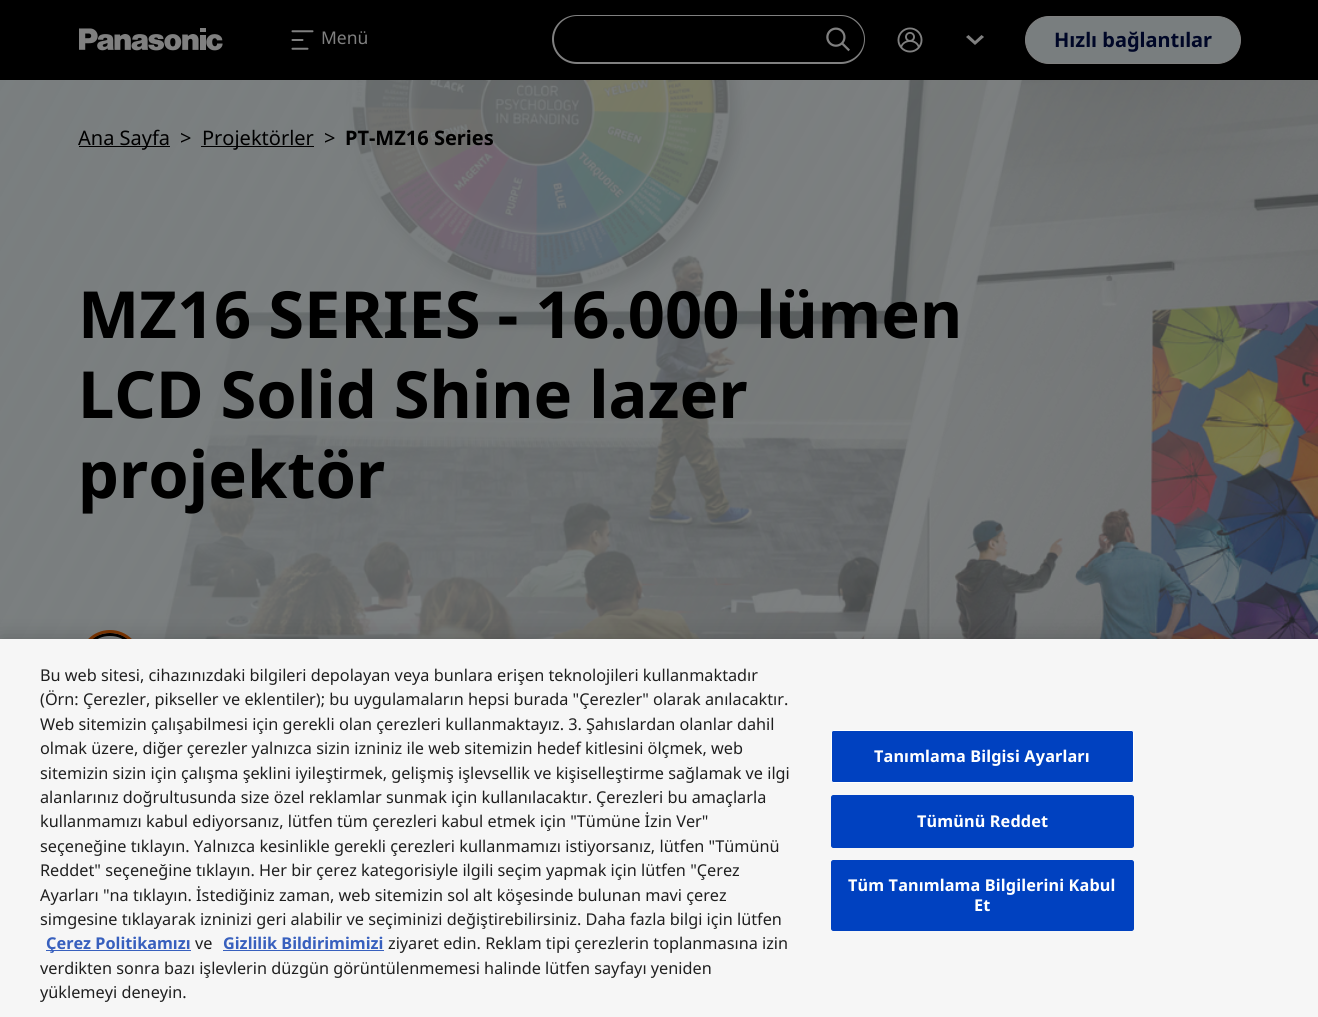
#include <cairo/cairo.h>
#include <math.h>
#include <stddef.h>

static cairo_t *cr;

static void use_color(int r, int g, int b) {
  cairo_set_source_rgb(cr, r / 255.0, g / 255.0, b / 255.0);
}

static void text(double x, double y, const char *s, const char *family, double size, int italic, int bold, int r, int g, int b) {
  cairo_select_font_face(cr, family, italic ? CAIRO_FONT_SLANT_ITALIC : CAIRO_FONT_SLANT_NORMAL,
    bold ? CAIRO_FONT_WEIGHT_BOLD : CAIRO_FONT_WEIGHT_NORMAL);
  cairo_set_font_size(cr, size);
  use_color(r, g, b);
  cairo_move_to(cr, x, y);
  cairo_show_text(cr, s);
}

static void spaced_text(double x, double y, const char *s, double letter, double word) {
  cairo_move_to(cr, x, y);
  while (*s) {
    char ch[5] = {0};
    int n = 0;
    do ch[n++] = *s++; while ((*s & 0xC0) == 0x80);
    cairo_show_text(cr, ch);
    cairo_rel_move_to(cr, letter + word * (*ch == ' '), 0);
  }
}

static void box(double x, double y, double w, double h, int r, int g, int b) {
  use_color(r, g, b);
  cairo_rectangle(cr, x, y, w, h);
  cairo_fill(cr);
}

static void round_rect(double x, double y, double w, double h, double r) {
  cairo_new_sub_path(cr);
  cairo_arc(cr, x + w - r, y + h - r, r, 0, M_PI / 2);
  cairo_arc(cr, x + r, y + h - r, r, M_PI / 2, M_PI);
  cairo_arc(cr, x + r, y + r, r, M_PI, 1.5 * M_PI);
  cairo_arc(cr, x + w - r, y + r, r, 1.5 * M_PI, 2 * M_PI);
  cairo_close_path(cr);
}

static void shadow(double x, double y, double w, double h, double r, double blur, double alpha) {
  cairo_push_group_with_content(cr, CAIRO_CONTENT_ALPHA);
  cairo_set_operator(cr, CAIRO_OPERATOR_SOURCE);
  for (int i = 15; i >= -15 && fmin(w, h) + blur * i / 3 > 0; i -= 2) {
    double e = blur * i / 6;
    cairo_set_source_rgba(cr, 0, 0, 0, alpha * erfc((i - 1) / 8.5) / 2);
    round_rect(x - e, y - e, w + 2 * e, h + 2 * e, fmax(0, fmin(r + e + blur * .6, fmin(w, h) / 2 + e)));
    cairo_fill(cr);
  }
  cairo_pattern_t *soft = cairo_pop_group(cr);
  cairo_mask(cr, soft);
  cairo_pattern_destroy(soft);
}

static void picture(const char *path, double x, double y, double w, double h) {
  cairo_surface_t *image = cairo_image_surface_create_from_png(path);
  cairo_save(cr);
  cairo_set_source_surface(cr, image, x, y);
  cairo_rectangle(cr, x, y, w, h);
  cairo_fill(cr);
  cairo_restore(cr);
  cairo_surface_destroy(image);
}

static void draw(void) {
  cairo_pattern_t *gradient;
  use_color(128, 128, 128);
  cairo_paint(cr);
  box(0, 0, 1318, 80, 0, 0, 0);
  picture("img_01.png", 79, 28, 144, 23);
  picture("img_02.png", 291, 30, 23, 20);
  use_color(128, 128, 128);
  cairo_set_fill_rule(cr, CAIRO_FILL_RULE_EVEN_ODD);
  cairo_new_path(cr);
  cairo_move_to(cr, 814, 15);
  cairo_line_to(cr, 841, 15);
  cairo_curve_to(cr, 854, 15, 865, 26, 865, 39);
  cairo_curve_to(cr, 865, 53, 854, 64, 841, 64);
  cairo_line_to(cr, 814, 64);
  cairo_close_path(cr);
  cairo_move_to(cr, 814, 16);
  cairo_line_to(cr, 841, 16);
  cairo_curve_to(cr, 853, 16, 864, 27, 864, 39);
  cairo_curve_to(cr, 864, 52, 853, 62, 841, 62);
  cairo_line_to(cr, 814, 62);
  cairo_close_path(cr);
  cairo_fill(cr);
  cairo_new_path(cr);
  cairo_move_to(cr, 577, 15);
  cairo_line_to(cr, 815, 15);
  cairo_line_to(cr, 815, 64);
  cairo_line_to(cr, 577, 64);
  cairo_curve_to(cr, 563, 64, 552, 53, 552, 39);
  cairo_curve_to(cr, 552, 26, 563, 15, 577, 15);
  cairo_close_path(cr);
  cairo_move_to(cr, 577, 16);
  cairo_line_to(cr, 815, 16);
  cairo_line_to(cr, 815, 62);
  cairo_line_to(cr, 577, 62);
  cairo_curve_to(cr, 564, 62, 554, 52, 554, 39);
  cairo_curve_to(cr, 554, 27, 564, 16, 577, 16);
  cairo_close_path(cr);
  cairo_fill(cr);
  picture("img_03.png", 826, 27, 24, 25);
  picture("img_04.png", 897, 27, 26, 26);
  cairo_set_fill_rule(cr, CAIRO_FILL_RULE_WINDING);
  cairo_new_path(cr);
  cairo_move_to(cr, 975, 45);
  cairo_line_to(cr, 966, 37);
  cairo_line_to(cr, 968.5, 35);
  cairo_line_to(cr, 975, 41);
  cairo_line_to(cr, 981.5, 35);
  cairo_line_to(cr, 984, 37);
  cairo_close_path(cr);
  cairo_fill(cr);
  use_color(121, 126, 127);
  round_rect(1025.5, 16.5, 215, 47, 23.5);
  cairo_fill_preserve(cr);
  use_color(128, 128, 128);
  cairo_set_line_width(cr, 1);
  cairo_stroke(cr);
  picture("img_05.png", 82, 80, 1236, 559);
  gradient = cairo_pattern_create_linear(-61, 102, 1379, 900);
  cairo_pattern_add_color_stop_rgba(gradient, 0, 0.475, 0.494, 0.498, 0.95);
  cairo_pattern_add_color_stop_rgba(gradient, 0.5, 0.475, 0.494, 0.498, 0.7);
  cairo_pattern_add_color_stop_rgba(gradient, 0.76, 0.475, 0.494, 0.498, 0.5);
  cairo_pattern_add_color_stop_rgba(gradient, 1, 0.475, 0.494, 0.498, 0);
  cairo_set_source(cr, gradient);
  cairo_pattern_destroy(gradient);
  cairo_rectangle(cr, 0, 80, 1318, 559);
  cairo_fill(cr);
  box(79, 146, 91, 1, 0, 0, 0);
  box(201, 146, 113, 1, 0, 0, 0);
  round_rect(82.5, 634.5, 55, 54, 27);
  cairo_set_line_width(cr, 3);
  cairo_stroke(cr);
  round_rect(80.5, 631.5, 59, 60, 29.5);
  use_color(125, 53, 1);
  cairo_stroke(cr);
  use_color(0, 0, 0);
  shadow(0, 639, 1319, 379, 0, 11, 0.2);
  box(0, 639, 1318, 378, 246, 246, 246);
  box(46, 950, 145, 1, 56, 96, 190);
  box(223, 950, 161, 1, 56, 96, 190);
  use_color(0, 65, 192);
  round_rect(831.5, 730.5, 302, 52, 2);
  cairo_fill_preserve(cr);
  use_color(255, 255, 255);
  cairo_set_line_width(cr, 1);
  cairo_stroke(cr);
  use_color(0, 65, 192);
  round_rect(831.5, 795.5, 302, 52, 2);
  cairo_fill_preserve(cr);
  cairo_stroke(cr);
  round_rect(831.5, 860.5, 302, 70, 2);
  cairo_fill_preserve(cr);
  cairo_stroke(cr);
  text(321, 44, "Menü", "Noto Sans", 17.5, 0, 0, 128, 128, 128);
  text(1054, 47, "Hızlı bağlantılar", "Noto Sans", 20, 0, 1, 0, 7, 39);
  text(78, 145, "Ana Sayfa", "Noto Sans", 20, 0, 0, 0, 0, 0);
  text(180, 145, ">", "Noto Sans", 20, 0, 0, 0, 0, 0);
  text(202, 145, "Projektörler", "Noto Sans", 20, 0, 0, 0, 0, 0);
  text(324, 145, ">", "Noto Sans", 20, 0, 0, 0, 0, 0);
  text(345, 145, "PT-MZ16 Series", "Noto Sans", 20, 0, 1, 0, 0, 0);
  text(78, 338, "MZ16 SERIES - 16.000 lümen", "Noto Sans", 65, 0, 1, 0, 0, 0);
  text(78, 418, "LCD Solid Shine lazer", "Noto Sans", 65, 0, 1, 0, 0, 0);
  text(78, 498, "projektör", "Noto Sans", 65, 0, 1, 0, 0, 0);
  text(40, 681, "Bu web sitesi, cihazınızdaki bilgileri depolayan veya bunlara erişen teknolojileri kullanmaktadır", "Noto Sans", 16.25, 0, 0, 31, 31, 31);
  text(40, 705, "(Örn: Çerezler, pikseller ve eklentiler); bu uygulamaların hepsi burada \"Çerezler\" olarak anılacaktır.", "Noto Sans", 16.25, 0, 0, 31, 31, 31);
  text(40, 730, "Web sitemizin çalışabilmesi için gerekli olan çerezleri kullanmaktayız. 3. Şahıslardan olanlar dahil", "Noto Sans", 16.25, 0, 0, 31, 31, 31);
  text(40, 754, "olmak üzere, diğer çerezler yalnızca sizin izniniz ile web sitemizin hedef kitlesini ölçmek, web", "Noto Sans", 16.25, 0, 0, 31, 31, 31);
  text(40, 779, "sitemizin sizin için çalışma şeklini iyileştirmek, gelişmiş işlevsellik ve kişiselleştirme sağlamak ve ilgi", "Noto Sans", 16.25, 0, 0, 31, 31, 31);
  text(40, 803, "alanlarınız doğrultusunda size özel reklamlar sunmak için kullanılacaktır.", "Noto Sans", 16.25, 0, 0, 31, 31, 31);
  text(596, 803, "Çerezleri bu amaçlarla", "Noto Sans", 16.25, 0, 0, 31, 31, 31);
  text(40, 827, "kullanmamızı kabul ediyorsanız, lütfen tüm çerezleri kabul etmek için \"Tümüne İzin Ver\"", "Noto Sans", 16.25, 0, 0, 31, 31, 31);
  text(40, 852, "seçeneğine tıklayın. Yalnızca kesinlikle gerekli çerezleri kullanmamızı istiyorsanız, lütfen \"Tümünü", "Noto Sans", 16.25, 0, 0, 31, 31, 31);
  text(40, 876, "Reddet\" seçeneğine tıklayın. Her bir çerez kategorisiyle ilgili seçim yapmak için lütfen \"Çerez", "Noto Sans", 16.25, 0, 0, 31, 31, 31);
  text(40, 901, "Ayarları \"na tıklayın. İstediğiniz zaman, web sitemizin sol alt köşesinde bulunan mavi çerez", "Noto Sans", 16.25, 0, 0, 31, 31, 31);
  text(40, 925, "simgesine tıklayarak izninizi geri alabilir ve seçiminizi değiştirebilirsiniz. Daha fazla bilgi için lütfen", "Noto Sans", 16.25, 0, 0, 31, 31, 31);
  text(46, 949, "Çerez Politikamızı", "Noto Sans", 16.25, 0, 1, 56, 96, 190);
  text(195, 949, "ve", "Noto Sans", 16.25, 0, 0, 31, 31, 31);
  text(223, 949, "Gizlilik Bildirimimizi", "Noto Sans", 16.25, 0, 1, 56, 96, 190);
  text(388, 949, "ziyaret edin. Reklam tipi çerezlerin toplanmasına izin", "Noto Sans", 16.25, 0, 0, 31, 31, 31);
  text(40, 974, "verdikten sonra bazı işlevlerin düzgün görüntülenmemesi halinde lütfen sayfayı yeniden", "Noto Sans", 16.25, 0, 0, 31, 31, 31);
  text(40, 998, "yüklemeyi deneyin.", "Noto Sans", 16.25, 0, 0, 31, 31, 31);
  cairo_select_font_face(cr, "Noto Sans", CAIRO_FONT_SLANT_NORMAL, CAIRO_FONT_WEIGHT_BOLD);
  use_color(255, 255, 255);
  spaced_text(874, 762, "Tanımlama Bilgisi Ayarları", 0.15, 0);
  spaced_text(917, 827, "Tümünü Reddet", 0.15, 0);
  spaced_text(848, 891, "Tüm Tanımlama Bilgilerini Kabul", 0.15, 0);
  spaced_text(974, 911, "Et", 0.15, 0);
}

int main(void) {
  cairo_surface_t *surface = cairo_image_surface_create(CAIRO_FORMAT_RGB24, 1318, 1017);
  cr = cairo_create(surface);
  cairo_font_options_t *options = cairo_font_options_create();
  cairo_font_options_set_hint_metrics(options, CAIRO_HINT_METRICS_OFF);
  cairo_font_options_set_hint_style(options, CAIRO_HINT_STYLE_NONE);
  cairo_set_font_options(cr, options);
  cairo_set_miter_limit(cr, 4);
  draw();
  cairo_surface_write_to_png(surface, "out.png");
  cairo_font_options_destroy(options);
  cairo_destroy(cr);
  cairo_surface_destroy(surface);
  return 0;
}
